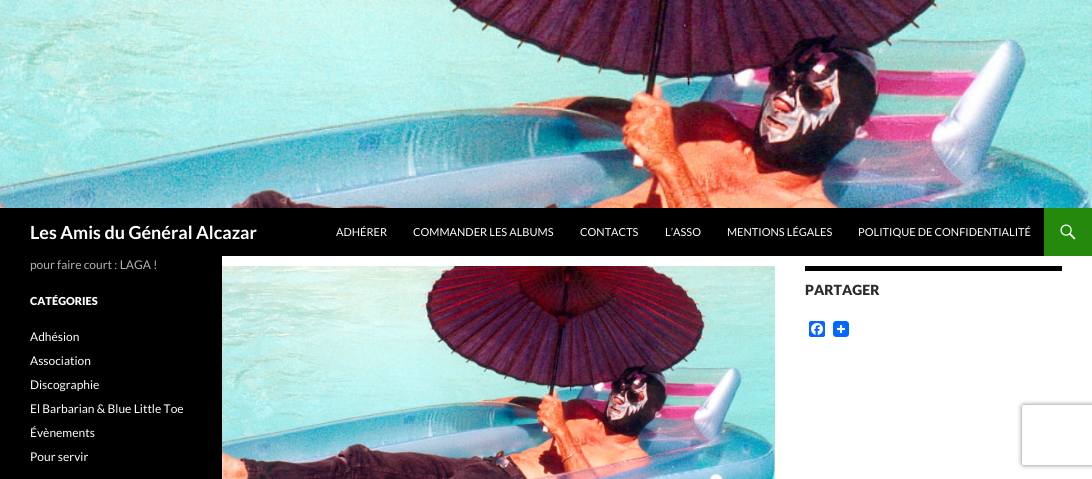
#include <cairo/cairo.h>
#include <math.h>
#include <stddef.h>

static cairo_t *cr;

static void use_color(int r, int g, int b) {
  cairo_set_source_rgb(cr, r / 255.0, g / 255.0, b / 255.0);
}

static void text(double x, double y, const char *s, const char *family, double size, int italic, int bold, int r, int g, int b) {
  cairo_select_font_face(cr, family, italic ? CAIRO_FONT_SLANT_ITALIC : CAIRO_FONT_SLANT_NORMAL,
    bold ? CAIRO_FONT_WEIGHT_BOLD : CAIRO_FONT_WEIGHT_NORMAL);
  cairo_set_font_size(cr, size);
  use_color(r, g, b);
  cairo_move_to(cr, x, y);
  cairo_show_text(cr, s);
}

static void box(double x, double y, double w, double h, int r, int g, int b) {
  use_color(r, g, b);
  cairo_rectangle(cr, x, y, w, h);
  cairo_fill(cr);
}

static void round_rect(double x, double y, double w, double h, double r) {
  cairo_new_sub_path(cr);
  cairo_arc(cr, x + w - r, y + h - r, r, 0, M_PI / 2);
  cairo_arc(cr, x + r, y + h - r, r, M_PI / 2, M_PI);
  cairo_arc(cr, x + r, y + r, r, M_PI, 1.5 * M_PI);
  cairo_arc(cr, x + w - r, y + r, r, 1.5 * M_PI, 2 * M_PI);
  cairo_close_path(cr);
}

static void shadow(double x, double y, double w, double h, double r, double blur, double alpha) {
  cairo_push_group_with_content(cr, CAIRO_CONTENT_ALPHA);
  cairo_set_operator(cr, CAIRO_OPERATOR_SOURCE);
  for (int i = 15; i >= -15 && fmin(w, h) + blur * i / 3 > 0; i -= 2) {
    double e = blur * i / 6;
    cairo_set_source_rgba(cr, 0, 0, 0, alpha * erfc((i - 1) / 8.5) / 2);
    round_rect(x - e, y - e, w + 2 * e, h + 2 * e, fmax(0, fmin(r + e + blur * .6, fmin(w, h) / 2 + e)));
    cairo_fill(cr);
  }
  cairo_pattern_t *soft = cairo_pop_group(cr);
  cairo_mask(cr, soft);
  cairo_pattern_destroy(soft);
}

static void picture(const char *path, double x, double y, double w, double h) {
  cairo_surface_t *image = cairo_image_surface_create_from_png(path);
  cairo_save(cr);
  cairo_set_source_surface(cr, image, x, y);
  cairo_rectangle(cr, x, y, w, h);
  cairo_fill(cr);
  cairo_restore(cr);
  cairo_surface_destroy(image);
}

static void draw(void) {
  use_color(255, 255, 255);
  cairo_paint(cr);
  picture("img_01.png", 0, 0, 1092, 208);
  box(0, 208, 1044, 48, 0, 0, 0);
  box(1044, 208, 48, 48, 36, 137, 13);
  picture("img_02.png", 1060, 224, 16, 16);
  box(0, 256, 222, 223, 0, 0, 0);
  picture("img_03.png", 222, 266, 553, 213);
  box(805, 266, 257, 5, 0, 0, 0);
  use_color(8, 102, 255);
  round_rect(809, 321, 16, 16, 2);
  cairo_fill(cr);
  picture("img_04.png", 811, 323, 12, 12);
  picture("img_05.png", 833, 321, 16, 16);
  cairo_save(cr);
  cairo_set_fill_rule(cr, CAIRO_FILL_RULE_EVEN_ODD);
  cairo_new_path(cr);
  cairo_move_to(cr, 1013, 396);
  cairo_line_to(cr, 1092, 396);
  cairo_line_to(cr, 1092, 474);
  cairo_line_to(cr, 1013, 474);
  cairo_close_path(cr);
  cairo_move_to(cr, 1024, 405);
  cairo_line_to(cr, 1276, 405);
  cairo_curve_to(cr, 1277, 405, 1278, 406, 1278, 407);
  cairo_line_to(cr, 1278, 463);
  cairo_curve_to(cr, 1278, 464, 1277, 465, 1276, 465);
  cairo_line_to(cr, 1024, 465);
  cairo_curve_to(cr, 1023, 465, 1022, 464, 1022, 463);
  cairo_line_to(cr, 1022, 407);
  cairo_curve_to(cr, 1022, 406, 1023, 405, 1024, 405);
  cairo_close_path(cr);
  cairo_clip(cr);
  use_color(128, 128, 128);
  shadow(1022, 405, 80, 60, 2, 2.5, 1);
  cairo_restore(cr);
  text(30, 239, "Les Amis du Général Alcazar", "Lato", 18, 0, 1, 255, 255, 255);
  text(336, 236, "ADHÉRER", "Lato", 11, 0, 0, 255, 255, 255);
  text(413, 236, "COMMANDER LES ALBUMS", "Lato", 11, 0, 0, 255, 255, 255);
  text(580, 236, "CONTACTS", "Lato", 11, 0, 0, 255, 255, 255);
  text(665, 236, "L’ASSO", "Lato", 11, 0, 0, 255, 255, 255);
  text(727, 236, "MENTIONS LÉGALES", "Lato", 11, 0, 0, 255, 255, 255);
  text(858, 236, "POLITIQUE DE CONFIDENTIALITÉ", "Lato", 11, 0, 0, 255, 255, 255);
  text(30, 269, "pour faire court : LAGA !", "Lato", 12, 0, 0, 179, 179, 179);
  text(30, 305, "CATÉGORIES", "Lato Black", 11, 0, 0, 255, 255, 255);
  text(30, 341, "Adhésion", "Lato", 12, 0, 0, 255, 255, 255);
  text(30, 365, "Association", "Lato", 12, 0, 0, 255, 255, 255);
  text(30, 389, "Discographie", "Lato", 12, 0, 0, 255, 255, 255);
  text(30, 413, "El Barbarian & Blue Little Toe", "Lato", 12, 0, 0, 255, 255, 255);
  text(30, 437, "Évènements", "Lato", 12, 0, 0, 255, 255, 255);
  text(30, 461, "Pour servir", "Lato", 12, 0, 0, 255, 255, 255);
  text(805, 295, "PARTAGER", "Lato Black", 14, 0, 0, 43, 43, 43);
}

int main(void) {
  cairo_surface_t *surface = cairo_image_surface_create(CAIRO_FORMAT_RGB24, 1092, 479);
  cr = cairo_create(surface);
  cairo_font_options_t *options = cairo_font_options_create();
  cairo_font_options_set_hint_metrics(options, CAIRO_HINT_METRICS_OFF);
  cairo_font_options_set_hint_style(options, CAIRO_HINT_STYLE_NONE);
  cairo_set_font_options(cr, options);
  cairo_set_miter_limit(cr, 4);
  draw();
  cairo_surface_write_to_png(surface, "out.png");
  cairo_font_options_destroy(options);
  cairo_destroy(cr);
  cairo_surface_destroy(surface);
  return 0;
}
